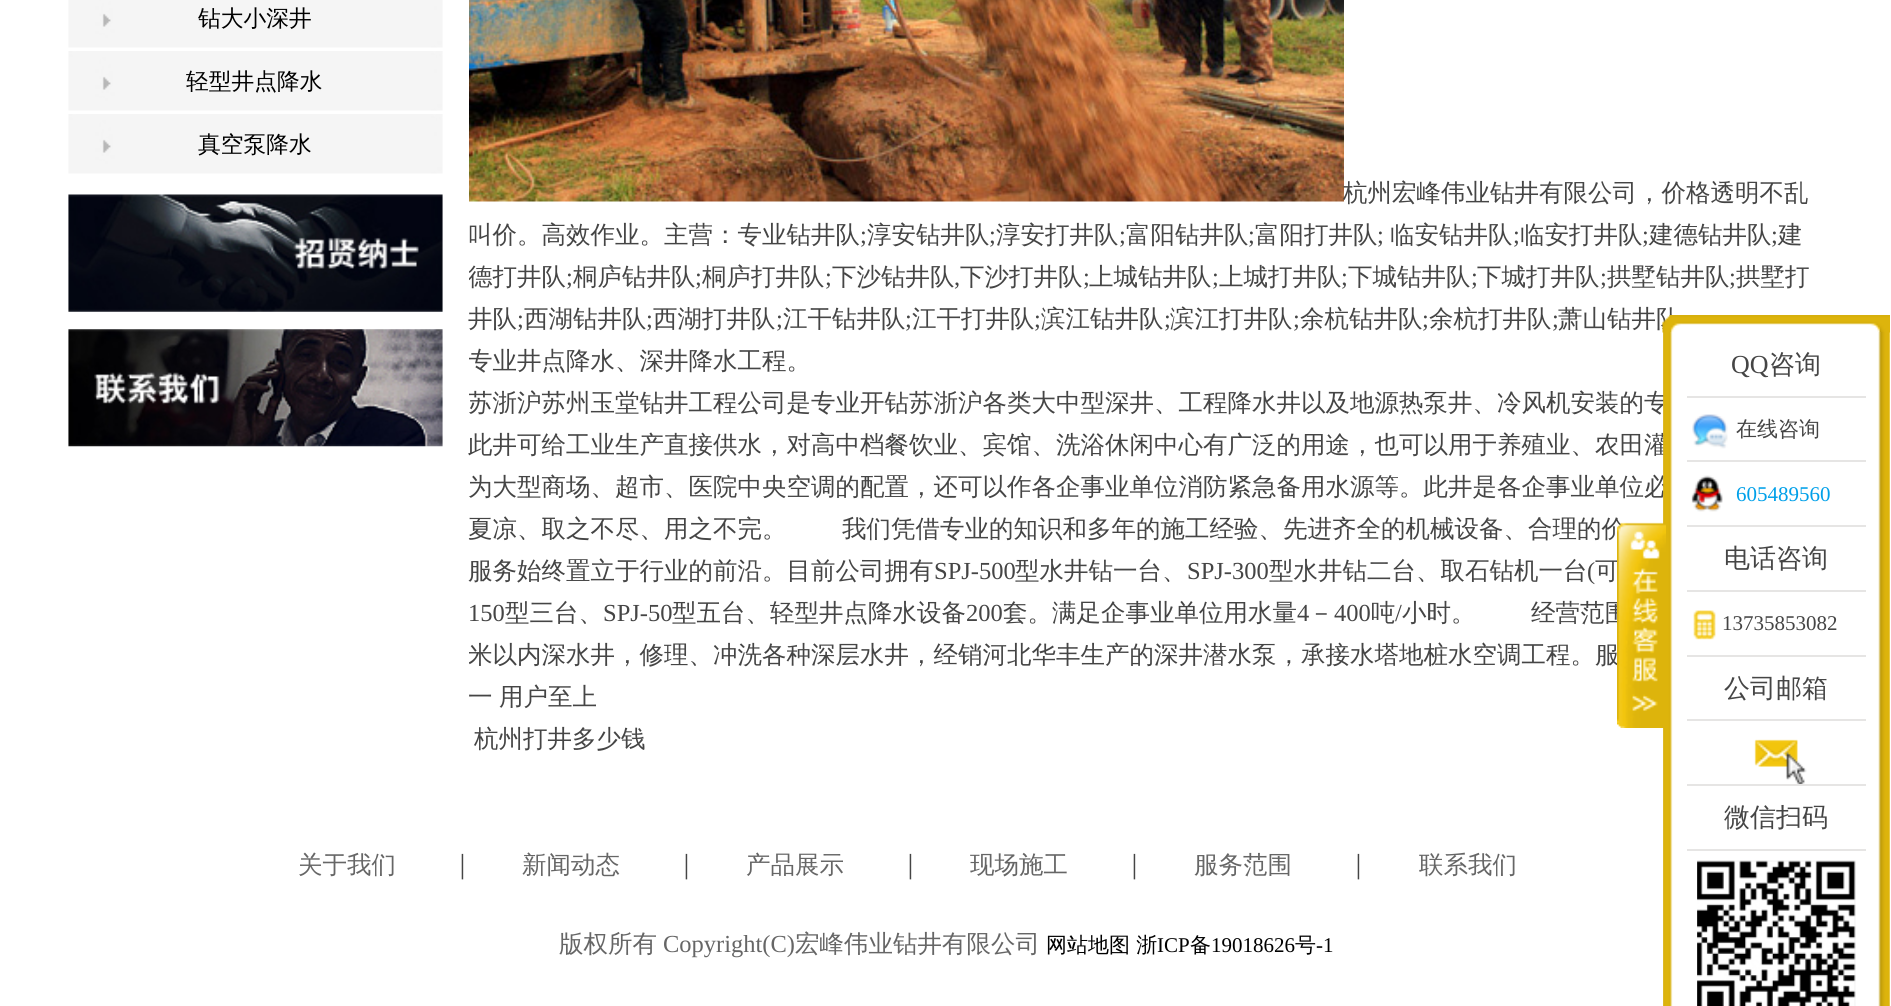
#include <cairo/cairo.h>
#include <math.h>
#include <stddef.h>

static cairo_t *cr;

static void use_color(int r, int g, int b) {
  cairo_set_source_rgb(cr, r / 255.0, g / 255.0, b / 255.0);
}

static void text(double x, double y, const char *s, const char *family, double size, int italic, int bold, int r, int g, int b) {
  cairo_select_font_face(cr, family, italic ? CAIRO_FONT_SLANT_ITALIC : CAIRO_FONT_SLANT_NORMAL,
    bold ? CAIRO_FONT_WEIGHT_BOLD : CAIRO_FONT_WEIGHT_NORMAL);
  cairo_set_font_size(cr, size);
  use_color(r, g, b);
  cairo_move_to(cr, x, y);
  cairo_show_text(cr, s);
}

static void box(double x, double y, double w, double h, int r, int g, int b) {
  use_color(r, g, b);
  cairo_rectangle(cr, x, y, w, h);
  cairo_fill(cr);
}

static void picture(const char *path, double x, double y, double w, double h) {
  cairo_surface_t *image = cairo_image_surface_create_from_png(path);
  cairo_save(cr);
  cairo_set_source_surface(cr, image, x, y);
  cairo_rectangle(cr, x, y, w, h);
  cairo_fill(cr);
  cairo_restore(cr);
  cairo_surface_destroy(image);
}

static void draw(void) {
  use_color(255, 255, 255);
  cairo_paint(cr);
  picture("img_01.png", 68, 0, 375, 48);
  picture("img_02.png", 68, 51, 375, 60);
  picture("img_02.png", 68, 114, 375, 60);
  picture("img_03.png", 68, 194, 375, 118);
  picture("img_04.png", 68, 329, 375, 118);
  picture("img_05.png", 469, 0, 875, 202);
  text(198, 26, "钻大小深井", "WenQuanYi Zen Hei Medium", 22.75, 0, 0, 0, 0, 0);
  text(186, 89, "轻型井点降水", "WenQuanYi Zen Hei Medium", 22.75, 0, 0, 0, 0, 0);
  text(198, 152, "真空泵降水", "WenQuanYi Zen Hei Medium", 22.75, 0, 0, 0, 0, 0);
  text(1343, 201, "杭州宏峰伟业钻井有限公司，价格透明不乱", "WenQuanYi Zen Hei Medium", 24.5, 0, 0, 69, 69, 69);
  text(468, 243, "叫价。高效作业。主营：专业钻井队", "WenQuanYi Zen Hei Medium", 24.5, 0, 0, 69, 69, 69);
  text(860, 243, ";", "Liberation Serif", 24.5, 0, 0, 69, 69, 69);
  text(867, 243, "淳安钻井队", "WenQuanYi Zen Hei Medium", 24.5, 0, 0, 69, 69, 69);
  text(989, 243, ";", "Liberation Serif", 24.5, 0, 0, 69, 69, 69);
  text(996, 243, "淳安打井队", "WenQuanYi Zen Hei Medium", 24.5, 0, 0, 69, 69, 69);
  text(1119, 243, ";", "Liberation Serif", 24.5, 0, 0, 69, 69, 69);
  text(1126, 243, "富阳钻井队", "WenQuanYi Zen Hei Medium", 24.5, 0, 0, 69, 69, 69);
  text(1248, 243, ";", "Liberation Serif", 24.5, 0, 0, 69, 69, 69);
  text(1255, 243, "富阳打井队", "WenQuanYi Zen Hei Medium", 24.5, 0, 0, 69, 69, 69);
  text(1377, 243, ";", "Liberation Serif", 24.5, 0, 0, 69, 69, 69);
  text(1390, 243, "临安钻井队", "WenQuanYi Zen Hei Medium", 24.5, 0, 0, 69, 69, 69);
  text(1513, 243, ";", "Liberation Serif", 24.5, 0, 0, 69, 69, 69);
  text(1520, 243, "临安打井队", "WenQuanYi Zen Hei Medium", 24.5, 0, 0, 69, 69, 69);
  text(1642, 243, ";", "Liberation Serif", 24.5, 0, 0, 69, 69, 69);
  text(1649, 243, "建德钻井队", "WenQuanYi Zen Hei Medium", 24.5, 0, 0, 69, 69, 69);
  text(1771, 243, ";", "Liberation Serif", 24.5, 0, 0, 69, 69, 69);
  text(1778, 243, "建", "WenQuanYi Zen Hei Medium", 24.5, 0, 0, 69, 69, 69);
  cairo_save(cr);
  cairo_rectangle(cr, 469, 0, 1356, 761);
  cairo_clip(cr);
  text(468, 285, "德打井队", "WenQuanYi Zen Hei Medium", 24.5, 0, 0, 69, 69, 69);
  cairo_restore(cr);
  text(566, 285, ";", "Liberation Serif", 24.5, 0, 0, 69, 69, 69);
  text(573, 285, "桐庐钻井队", "WenQuanYi Zen Hei Medium", 24.5, 0, 0, 69, 69, 69);
  text(695, 285, ";", "Liberation Serif", 24.5, 0, 0, 69, 69, 69);
  text(702, 285, "桐庐打井队", "WenQuanYi Zen Hei Medium", 24.5, 0, 0, 69, 69, 69);
  text(825, 285, ";", "Liberation Serif", 24.5, 0, 0, 69, 69, 69);
  text(832, 285, "下沙钻井队", "WenQuanYi Zen Hei Medium", 24.5, 0, 0, 69, 69, 69);
  text(954, 285, ",", "Liberation Serif", 24.5, 0, 0, 69, 69, 69);
  text(960, 285, "下沙打井队", "WenQuanYi Zen Hei Medium", 24.5, 0, 0, 69, 69, 69);
  text(1083, 285, ";", "Liberation Serif", 24.5, 0, 0, 69, 69, 69);
  text(1089, 285, "上城钻井队", "WenQuanYi Zen Hei Medium", 24.5, 0, 0, 69, 69, 69);
  text(1212, 285, ";", "Liberation Serif", 24.5, 0, 0, 69, 69, 69);
  text(1219, 285, "上城打井队", "WenQuanYi Zen Hei Medium", 24.5, 0, 0, 69, 69, 69);
  text(1341, 285, ";", "Liberation Serif", 24.5, 0, 0, 69, 69, 69);
  text(1348, 285, "下城钻井队", "WenQuanYi Zen Hei Medium", 24.5, 0, 0, 69, 69, 69);
  text(1471, 285, ";", "Liberation Serif", 24.5, 0, 0, 69, 69, 69);
  text(1477, 285, "下城打井队", "WenQuanYi Zen Hei Medium", 24.5, 0, 0, 69, 69, 69);
  text(1600, 285, ";", "Liberation Serif", 24.5, 0, 0, 69, 69, 69);
  text(1607, 285, "拱墅钻井队", "WenQuanYi Zen Hei Medium", 24.5, 0, 0, 69, 69, 69);
  text(1729, 285, ";", "Liberation Serif", 24.5, 0, 0, 69, 69, 69);
  text(1736, 285, "拱墅打", "WenQuanYi Zen Hei Medium", 24.5, 0, 0, 69, 69, 69);
  text(468, 327, "井队", "WenQuanYi Zen Hei Medium", 24.5, 0, 0, 69, 69, 69);
  text(517, 327, ";", "Liberation Serif", 24.5, 0, 0, 69, 69, 69);
  text(524, 327, "西湖钻井队", "WenQuanYi Zen Hei Medium", 24.5, 0, 0, 69, 69, 69);
  text(646, 327, ";", "Liberation Serif", 24.5, 0, 0, 69, 69, 69);
  text(653, 327, "西湖打井队", "WenQuanYi Zen Hei Medium", 24.5, 0, 0, 69, 69, 69);
  text(776, 327, ";", "Liberation Serif", 24.5, 0, 0, 69, 69, 69);
  text(783, 327, "江干钻井队", "WenQuanYi Zen Hei Medium", 24.5, 0, 0, 69, 69, 69);
  text(905, 327, ";", "Liberation Serif", 24.5, 0, 0, 69, 69, 69);
  text(912, 327, "江干打井队", "WenQuanYi Zen Hei Medium", 24.5, 0, 0, 69, 69, 69);
  text(1034, 327, ";", "Liberation Serif", 24.5, 0, 0, 69, 69, 69);
  text(1041, 327, "滨江钻井队", "WenQuanYi Zen Hei Medium", 24.5, 0, 0, 69, 69, 69);
  text(1164, 327, ";", "Liberation Serif", 24.5, 0, 0, 69, 69, 69);
  text(1170, 327, "滨江打井队", "WenQuanYi Zen Hei Medium", 24.5, 0, 0, 69, 69, 69);
  text(1293, 327, ";", "Liberation Serif", 24.5, 0, 0, 69, 69, 69);
  text(1300, 327, "余杭钻井队", "WenQuanYi Zen Hei Medium", 24.5, 0, 0, 69, 69, 69);
  text(1422, 327, ";", "Liberation Serif", 24.5, 0, 0, 69, 69, 69);
  text(1429, 327, "余杭打井队", "WenQuanYi Zen Hei Medium", 24.5, 0, 0, 69, 69, 69);
  text(1552, 327, ";", "Liberation Serif", 24.5, 0, 0, 69, 69, 69);
  text(1558, 327, "萧山钻井队", "WenQuanYi Zen Hei Medium", 24.5, 0, 0, 69, 69, 69);
  cairo_save(cr);
  cairo_rectangle(cr, 469, 0, 1356, 761);
  cairo_clip(cr);
  text(468, 369, "专业井点降水、深井降水工程。", "WenQuanYi Zen Hei Medium", 24.5, 0, 0, 69, 69, 69);
  text(468, 411, "苏浙沪苏州玉堂钻井工程公司是专业开钻苏浙沪各类大中型深井、工程降水井以及地源热泵井、冷风机安装的专", "WenQuanYi Zen Hei Medium", 24.5, 0, 0, 69, 69, 69);
  cairo_restore(cr);
  text(468, 453, "此井可给工业生产直接供水，对高中档餐饮业、宾馆、洗浴休闲中心有广泛的用途，也可以用于养殖业、农田灌", "WenQuanYi Zen Hei Medium", 24.5, 0, 0, 69, 69, 69);
  text(468, 495, "为大型商场、超市、医院中央空调的配置，还可以作各企事业单位消防紧急备用水源等。此井是各企事业单位必", "WenQuanYi Zen Hei Medium", 24.5, 0, 0, 69, 69, 69);
  text(468, 537, "夏凉、取之不尽、用之不完。", "WenQuanYi Zen Hei Medium", 24.5, 0, 0, 69, 69, 69);
  text(842, 537, "我们凭借专业的知识和多年的施工经验、先进齐全的机械设备、合理的价", "WenQuanYi Zen Hei Medium", 24.5, 0, 0, 69, 69, 69);
  text(468, 579, "服务始终置立于行业的前沿。目前公司拥有", "WenQuanYi Zen Hei Medium", 24.5, 0, 0, 69, 69, 69);
  text(934, 579, "SPJ-500", "Liberation Serif", 24.5, 0, 0, 69, 69, 69);
  text(1015, 579, "型水井钻一台、", "WenQuanYi Zen Hei Medium", 24.5, 0, 0, 69, 69, 69);
  text(1187, 579, "SPJ-300", "Liberation Serif", 24.5, 0, 0, 69, 69, 69);
  text(1269, 579, "型水井钻二台、取石钻机一台", "WenQuanYi Zen Hei Medium", 24.5, 0, 0, 69, 69, 69);
  text(1587, 579, "(", "Liberation Serif", 24.5, 0, 0, 69, 69, 69);
  text(1595, 579, "可", "WenQuanYi Zen Hei Medium", 24.5, 0, 0, 69, 69, 69);
  text(468, 621, "150", "Liberation Serif", 24.5, 0, 0, 69, 69, 69);
  text(505, 621, "型三台、", "WenQuanYi Zen Hei Medium", 24.5, 0, 0, 69, 69, 69);
  text(603, 621, "SPJ-50", "Liberation Serif", 24.5, 0, 0, 69, 69, 69);
  text(672, 621, "型五台、轻型井点降水设备", "WenQuanYi Zen Hei Medium", 24.5, 0, 0, 69, 69, 69);
  text(966, 621, "200", "Liberation Serif", 24.5, 0, 0, 69, 69, 69);
  text(1003, 621, "套。满足企事业单位用水量", "WenQuanYi Zen Hei Medium", 24.5, 0, 0, 69, 69, 69);
  text(1297, 621, "4", "Liberation Serif", 24.5, 0, 0, 69, 69, 69);
  text(1309, 621, "－", "WenQuanYi Zen Hei Medium", 24.5, 0, 0, 69, 69, 69);
  text(1334, 621, "400", "Liberation Serif", 24.5, 0, 0, 69, 69, 69);
  text(1371, 621, "吨", "WenQuanYi Zen Hei Medium", 24.5, 0, 0, 69, 69, 69);
  text(1395, 621, "/", "Liberation Serif", 24.5, 0, 0, 69, 69, 69);
  text(1402, 621, "小时。", "WenQuanYi Zen Hei Medium", 24.5, 0, 0, 69, 69, 69);
  text(1531, 621, "经营范围", "WenQuanYi Zen Hei Medium", 24.5, 0, 0, 69, 69, 69);
  cairo_save(cr);
  cairo_rectangle(cr, 469, 0, 1356, 761);
  cairo_clip(cr);
  text(468, 663, "米以内深水井，修理、冲洗各种深层水井，经销河北华丰生产的深井潜水泵，承接水塔地桩水空调工程。服", "WenQuanYi Zen Hei Medium", 24.5, 0, 0, 69, 69, 69);
  cairo_restore(cr);
  text(468, 705, "一", "WenQuanYi Zen Hei Medium", 24.5, 0, 0, 69, 69, 69);
  text(499, 705, "用户至上", "WenQuanYi Zen Hei Medium", 24.5, 0, 0, 69, 69, 69);
  text(474, 747, "杭州打井多少钱", "WenQuanYi Zen Hei Medium", 24.5, 0, 0, 69, 69, 69);
  picture("img_07.png", 1662, 315, 228, 18);
  picture("img_08.png", 1663, 332, 227, 674);
  picture("img_06.png", 1617, 522, 49, 206);
  box(1687, 396, 179, 2, 230, 229, 228);
  text(1731, 373, "QQ", "Liberation Serif", 26, 0, 0, 69, 69, 69);
  text(1769, 373, "咨询", "WenQuanYi Zen Hei Medium", 26, 0, 0, 69, 69, 69);
  box(1687, 460, 179, 2, 230, 229, 228);
  picture("img_09.png", 1692, 414, 36, 35);
  text(1736, 436, "在线咨询", "WenQuanYi Zen Hei Medium", 21, 0, 0, 69, 69, 69);
  box(1687, 525, 179, 2, 230, 229, 228);
  picture("img_10.png", 1691, 475, 32, 37);
  text(1736, 501, "605489560", "Liberation Serif", 21, 0, 0, 0, 160, 233);
  box(1687, 590, 179, 2, 230, 229, 228);
  text(1724, 567, "电话咨询", "WenQuanYi Zen Hei Medium", 26, 0, 0, 69, 69, 69);
  box(1687, 655, 179, 2, 230, 229, 228);
  picture("img_11.png", 1693, 610, 23, 30);
  text(1722, 630, "13735853082", "Liberation Serif", 21, 0, 0, 69, 69, 69);
  box(1687, 719, 179, 2, 230, 229, 228);
  text(1724, 697, "公司邮箱", "WenQuanYi Zen Hei Medium", 26, 0, 0, 69, 69, 69);
  box(1687, 784, 179, 2, 230, 229, 228);
  picture("img_12.png", 1754, 739, 53, 45);
  box(1687, 849, 179, 2, 230, 229, 228);
  text(1724, 826, "微信扫码", "WenQuanYi Zen Hei Medium", 26, 0, 0, 69, 69, 69);
  picture("img_13.png", 1697, 860, 159, 146);
  text(298, 873, "关于我们", "WenQuanYi Zen Hei Medium", 24.5, 0, 0, 102, 102, 102);
  text(455, 873, "│", "Liberation Serif", 21, 0, 0, 69, 69, 69);
  text(522, 873, "新闻动态", "WenQuanYi Zen Hei Medium", 24.5, 0, 0, 102, 102, 102);
  text(679, 873, "│", "Liberation Serif", 21, 0, 0, 69, 69, 69);
  text(746, 873, "产品展示", "WenQuanYi Zen Hei Medium", 24.5, 0, 0, 102, 102, 102);
  text(903, 873, "│", "Liberation Serif", 21, 0, 0, 69, 69, 69);
  text(970, 873, "现场施工", "WenQuanYi Zen Hei Medium", 24.5, 0, 0, 102, 102, 102);
  text(1127, 873, "│", "Liberation Serif", 21, 0, 0, 69, 69, 69);
  text(1194, 873, "服务范围", "WenQuanYi Zen Hei Medium", 24.5, 0, 0, 102, 102, 102);
  text(1351, 873, "│", "Liberation Serif", 21, 0, 0, 69, 69, 69);
  text(1419, 873, "联系我们", "WenQuanYi Zen Hei Medium", 24.5, 0, 0, 102, 102, 102);
  text(559, 952, "版权所有", "WenQuanYi Zen Hei Medium", 24.5, 0, 0, 102, 102, 102);
  text(663, 952, "Copyright(C)", "Liberation Serif", 24.5, 0, 0, 102, 102, 102);
  text(795, 952, "宏峰伟业钻井有限公司", "WenQuanYi Zen Hei Medium", 24.5, 0, 0, 102, 102, 102);
  text(1046, 952, "网站地图 浙", "WenQuanYi Zen Hei Medium", 21, 0, 0, 0, 0, 0);
  text(1157, 952, "ICP", "Liberation Serif", 21, 0, 0, 0, 0, 0);
  text(1190, 952, "备", "WenQuanYi Zen Hei Medium", 21, 0, 0, 0, 0, 0);
  text(1211, 952, "19018626", "Liberation Serif", 21, 0, 0, 0, 0, 0);
  text(1295, 952, "号", "WenQuanYi Zen Hei Medium", 21, 0, 0, 0, 0, 0);
  text(1316, 952, "-1", "Liberation Serif", 21, 0, 0, 0, 0, 0);
}

int main(void) {
  cairo_surface_t *surface = cairo_image_surface_create(CAIRO_FORMAT_RGB24, 1891, 1006);
  cr = cairo_create(surface);
  cairo_font_options_t *options = cairo_font_options_create();
  cairo_font_options_set_hint_metrics(options, CAIRO_HINT_METRICS_OFF);
  cairo_font_options_set_hint_style(options, CAIRO_HINT_STYLE_NONE);
  cairo_set_font_options(cr, options);
  cairo_set_miter_limit(cr, 4);
  draw();
  cairo_surface_write_to_png(surface, "out.png");
  cairo_font_options_destroy(options);
  cairo_destroy(cr);
  cairo_surface_destroy(surface);
  return 0;
}
